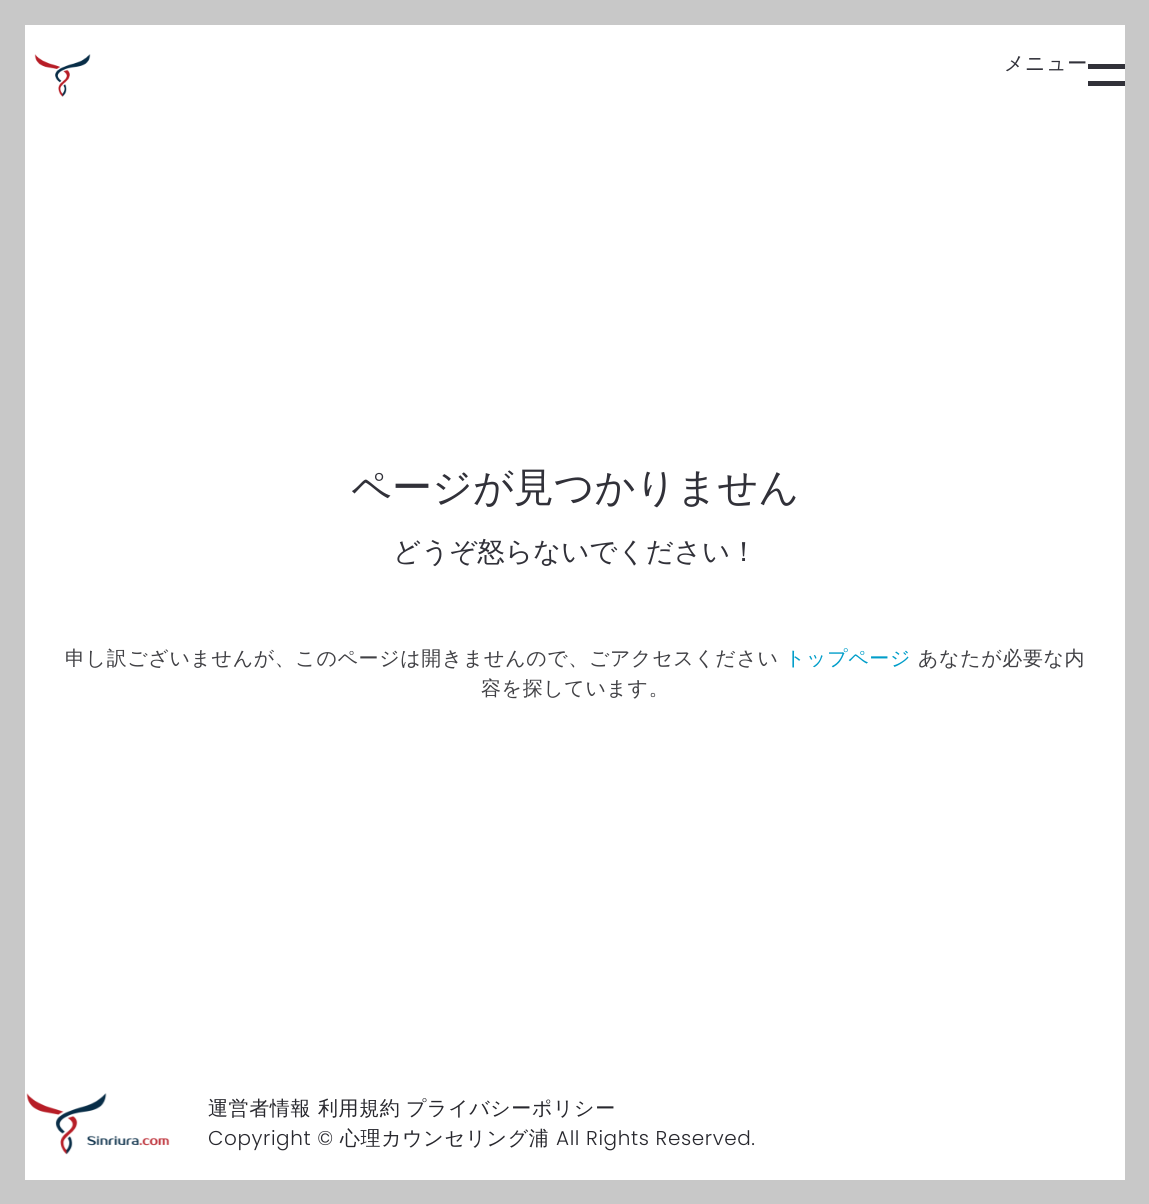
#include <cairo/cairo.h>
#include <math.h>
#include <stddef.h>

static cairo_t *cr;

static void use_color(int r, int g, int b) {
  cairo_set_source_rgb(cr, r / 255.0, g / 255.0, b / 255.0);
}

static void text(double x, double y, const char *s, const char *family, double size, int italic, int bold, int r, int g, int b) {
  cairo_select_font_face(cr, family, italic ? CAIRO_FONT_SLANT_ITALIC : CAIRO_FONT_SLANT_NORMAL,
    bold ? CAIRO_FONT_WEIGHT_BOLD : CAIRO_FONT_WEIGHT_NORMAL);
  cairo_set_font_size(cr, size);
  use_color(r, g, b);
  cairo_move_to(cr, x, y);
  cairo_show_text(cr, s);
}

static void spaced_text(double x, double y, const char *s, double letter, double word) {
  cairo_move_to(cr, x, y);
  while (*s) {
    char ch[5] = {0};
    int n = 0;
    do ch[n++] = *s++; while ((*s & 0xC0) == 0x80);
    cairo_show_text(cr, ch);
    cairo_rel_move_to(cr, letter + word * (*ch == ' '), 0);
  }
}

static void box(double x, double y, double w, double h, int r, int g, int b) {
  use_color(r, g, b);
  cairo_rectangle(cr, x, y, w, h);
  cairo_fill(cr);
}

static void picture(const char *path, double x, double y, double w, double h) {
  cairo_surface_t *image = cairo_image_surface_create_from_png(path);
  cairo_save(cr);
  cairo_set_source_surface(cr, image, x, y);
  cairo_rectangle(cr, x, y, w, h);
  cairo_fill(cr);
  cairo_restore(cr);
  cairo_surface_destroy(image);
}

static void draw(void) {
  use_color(255, 255, 255);
  cairo_paint(cr);
  picture("img_01.png", 34, 54, 57, 43);
  box(1088, 81, 37, 5, 49, 49, 57);
  box(1088, 64, 37, 5, 49, 49, 57);
  picture("img_02.png", 26, 1093, 144, 62);
  cairo_rectangle(cr, 12.5, 12.5, 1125, 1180);
  use_color(200, 200, 200);
  cairo_set_line_width(cr, 25);
  cairo_stroke(cr);
  cairo_select_font_face(cr, "WenQuanYi Zen Hei Medium", CAIRO_FONT_SLANT_NORMAL, CAIRO_FONT_WEIGHT_NORMAL);
  cairo_set_font_size(cr, 20);
  use_color(49, 49, 57);
  spaced_text(1004, 70, "メニュー", 0.6, 0);
  text(351, 501, "ページが見つかりません", "WenQuanYi Zen Hei Medium", 40, 0, 0, 49, 49, 57);
  text(393, 561, "どうぞ怒らないでください！", "WenQuanYi Zen Hei Medium", 27.5, 0, 0, 49, 49, 57);
  cairo_set_font_size(cr, 20);
  use_color(65, 65, 69);
  spaced_text(65, 665, "申し訳ございませんが、このページは開きませんので、ごアクセスください", 0.6, 0);
  use_color(0, 157, 201);
  spaced_text(785, 665, "トップページ", 0.6, 0);
  use_color(65, 65, 69);
  spaced_text(918, 665, "あなたが必要な内", 0.6, 0);
  spaced_text(481, 695, "容を探しています。", 0.6, 0);
  use_color(40, 40, 46);
  spaced_text(208, 1115, "運営者情報", 0.6, 0);
  spaced_text(318, 1115, "利用規約", 0.6, 0);
  spaced_text(406, 1115, "プライバシーポリシー", 0.6, 0);
  cairo_select_font_face(cr, "Poppins Light", CAIRO_FONT_SLANT_NORMAL, CAIRO_FONT_WEIGHT_NORMAL);
  spaced_text(208, 1145, "Copyright ©", 0.6, 0);
  cairo_select_font_face(cr, "WenQuanYi Zen Hei Medium", CAIRO_FONT_SLANT_NORMAL, CAIRO_FONT_WEIGHT_NORMAL);
  spaced_text(340, 1145, "心理カウンセリング浦", 0.6, 0);
  cairo_select_font_face(cr, "Poppins Light", CAIRO_FONT_SLANT_NORMAL, CAIRO_FONT_WEIGHT_NORMAL);
  spaced_text(556, 1145, "All Rights Reserved.", 0.6, 0);
}

int main(void) {
  cairo_surface_t *surface = cairo_image_surface_create(CAIRO_FORMAT_RGB24, 1149, 1204);
  cr = cairo_create(surface);
  cairo_font_options_t *options = cairo_font_options_create();
  cairo_font_options_set_hint_metrics(options, CAIRO_HINT_METRICS_OFF);
  cairo_font_options_set_hint_style(options, CAIRO_HINT_STYLE_NONE);
  cairo_set_font_options(cr, options);
  cairo_set_miter_limit(cr, 4);
  draw();
  cairo_surface_write_to_png(surface, "out.png");
  cairo_font_options_destroy(options);
  cairo_destroy(cr);
  cairo_surface_destroy(surface);
  return 0;
}
